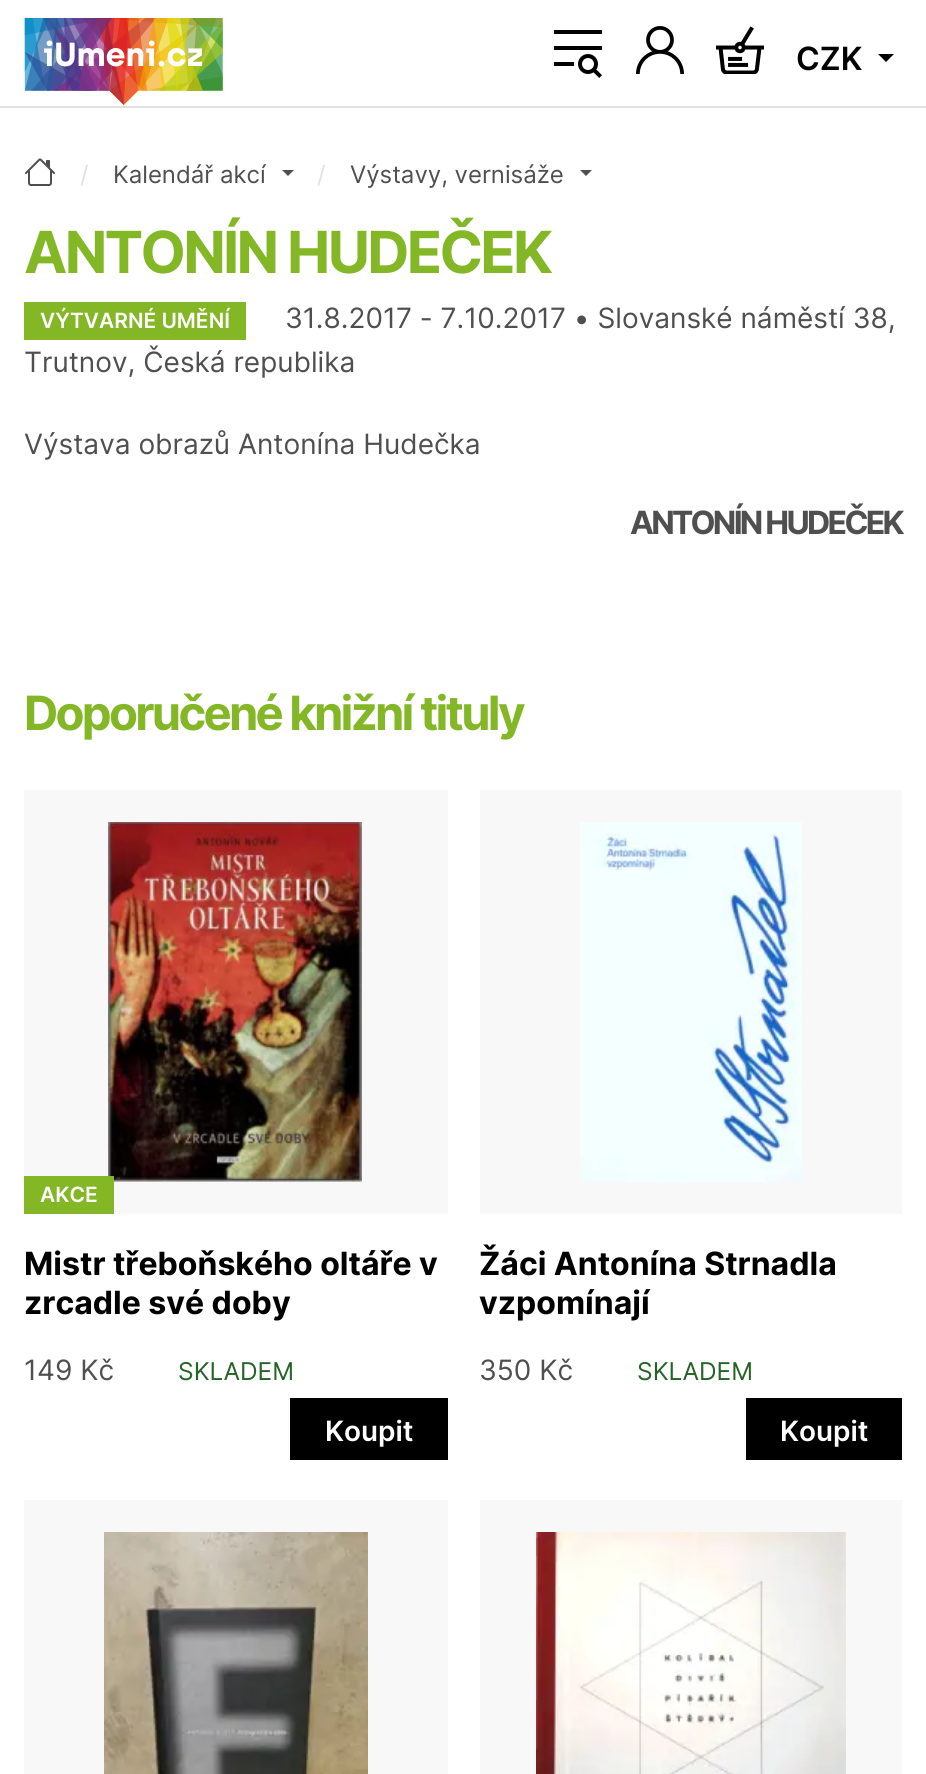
#include <cairo/cairo.h>
#include <math.h>
#include <stddef.h>

static cairo_t *cr;

static void use_color(int r, int g, int b) {
  cairo_set_source_rgb(cr, r / 255.0, g / 255.0, b / 255.0);
}

static void text(double x, double y, const char *s, const char *family, double size, int italic, int bold, int r, int g, int b) {
  cairo_select_font_face(cr, family, italic ? CAIRO_FONT_SLANT_ITALIC : CAIRO_FONT_SLANT_NORMAL,
    bold ? CAIRO_FONT_WEIGHT_BOLD : CAIRO_FONT_WEIGHT_NORMAL);
  cairo_set_font_size(cr, size);
  use_color(r, g, b);
  cairo_move_to(cr, x, y);
  cairo_show_text(cr, s);
}

static void spaced_text(double x, double y, const char *s, double letter, double word) {
  cairo_move_to(cr, x, y);
  while (*s) {
    char ch[5] = {0};
    int n = 0;
    do ch[n++] = *s++; while ((*s & 0xC0) == 0x80);
    cairo_show_text(cr, ch);
    cairo_rel_move_to(cr, letter + word * (*ch == ' '), 0);
  }
}

static void box(double x, double y, double w, double h, int r, int g, int b) {
  use_color(r, g, b);
  cairo_rectangle(cr, x, y, w, h);
  cairo_fill(cr);
}

static void picture(const char *path, double x, double y, double w, double h) {
  cairo_surface_t *image = cairo_image_surface_create_from_png(path);
  cairo_save(cr);
  cairo_set_source_surface(cr, image, x, y);
  cairo_rectangle(cr, x, y, w, h);
  cairo_fill(cr);
  cairo_restore(cr);
  cairo_surface_destroy(image);
}

static void draw(void) {
  use_color(255, 255, 255);
  cairo_paint(cr);
  box(0, 106, 926, 2, 225, 225, 225);
  picture("img_01.png", 24, 18, 199, 87);
  picture("img_02.png", 554, 30, 48, 48);
  picture("img_03.png", 636, 26, 48, 48);
  picture("img_04.png", 716, 26, 48, 48);
  use_color(0, 0, 0);
  cairo_new_path(cr);
  cairo_move_to(cr, 878, 54);
  cairo_line_to(cr, 894, 54);
  cairo_line_to(cr, 886, 62);
  cairo_close_path(cr);
  cairo_fill(cr);
  picture("img_05.png", 25, 158, 30, 28);
  use_color(79, 79, 79);
  cairo_new_path(cr);
  cairo_move_to(cr, 282, 170);
  cairo_line_to(cr, 294, 170);
  cairo_line_to(cr, 288, 176);
  cairo_close_path(cr);
  cairo_fill(cr);
  cairo_new_path(cr);
  cairo_move_to(cr, 580, 170);
  cairo_line_to(cr, 592, 170);
  cairo_line_to(cr, 586, 176);
  cairo_close_path(cr);
  cairo_fill(cr);
  box(24, 302, 222, 38, 131, 183, 38);
  box(24, 790, 424, 424, 248, 248, 248);
  picture("img_06.png", 108, 822, 254, 360);
  box(24, 1176, 90, 38, 131, 183, 38);
  box(290, 1398, 158, 62, 0, 0, 0);
  box(480, 790, 422, 424, 248, 248, 248);
  picture("img_07.png", 580, 822, 222, 360);
  box(746, 1398, 156, 62, 0, 0, 0);
  box(24, 1500, 424, 274, 248, 248, 248);
  picture("img_08.png", 104, 1532, 264, 242);
  box(480, 1500, 422, 274, 248, 248, 248);
  picture("img_09.png", 536, 1532, 310, 242);
  text(796, 70, "CZK", "Inter SemiBold", 32, 0, 0, 0, 0, 0);
  text(80, 183, "/", "Inter", 24, 0, 0, 222, 226, 230);
  text(113, 183, "Kalendář akcí", "Inter", 24, 0, 0, 79, 79, 79);
  text(317, 183, "/", "Inter", 24, 0, 0, 222, 226, 230);
  text(350, 183, "Výstavy, vernisáže", "Inter", 24, 0, 0, 79, 79, 79);
  cairo_select_font_face(cr, "Inter", CAIRO_FONT_SLANT_NORMAL, CAIRO_FONT_WEIGHT_BOLD);
  cairo_set_font_size(cr, 58);
  use_color(131, 183, 38);
  spaced_text(24, 273, "ANTONÍN HUDEČEK", -2.75, 0);
  text(40, 328, "VÝTVARNÉ UMĚNÍ", "Inter SemiBold", 21, 0, 0, 255, 255, 255);
  text(285, 328, "31.8.2017 - 7.10.2017 • Slovanské náměstí 38,", "Inter", 28, 0, 0, 79, 79, 79);
  text(24, 372, "Trutnov, Česká republika", "Inter", 28, 0, 0, 79, 79, 79);
  text(24, 454, "Výstava obrazů Antonína Hudečka", "Inter", 28, 0, 0, 79, 79, 79);
  cairo_select_font_face(cr, "Inter", CAIRO_FONT_SLANT_NORMAL, CAIRO_FONT_WEIGHT_BOLD);
  cairo_set_font_size(cr, 32);
  spaced_text(630, 534, "ANTONÍN HUDEČEK", -2.75, 0);
  cairo_set_font_size(cr, 47.25);
  use_color(131, 183, 38);
  spaced_text(24, 730, "Doporučené knižní tituly", -2.75, 0);
  text(40, 1202, "AKCE", "Inter SemiBold", 21, 0, 0, 255, 255, 255);
  text(24, 1275, "Mistr třeboňského oltáře v", "Inter", 32, 0, 1, 0, 0, 0);
  text(24, 1314, "zrcadle své doby", "Inter", 32, 0, 1, 0, 0, 0);
  text(24, 1380, "149 Kč", "Inter", 28, 0, 0, 79, 79, 79);
  text(178, 1380, "SKLADEM", "Inter", 24.5, 0, 0, 39, 99, 39);
  text(325, 1441, "Koupit", "Inter SemiBold", 28, 0, 0, 255, 255, 255);
  text(479, 1275, "Žáci Antonína Strnadla", "Inter", 32, 0, 1, 0, 0, 0);
  text(479, 1314, "vzpomínají", "Inter", 32, 0, 1, 0, 0, 0);
  text(479, 1380, "350 Kč", "Inter", 28, 0, 0, 79, 79, 79);
  text(637, 1380, "SKLADEM", "Inter", 24.5, 0, 0, 39, 99, 39);
  text(780, 1441, "Koupit", "Inter SemiBold", 28, 0, 0, 255, 255, 255);
}

int main(void) {
  cairo_surface_t *surface = cairo_image_surface_create(CAIRO_FORMAT_RGB24, 926, 1774);
  cr = cairo_create(surface);
  cairo_font_options_t *options = cairo_font_options_create();
  cairo_font_options_set_hint_metrics(options, CAIRO_HINT_METRICS_OFF);
  cairo_font_options_set_hint_style(options, CAIRO_HINT_STYLE_NONE);
  cairo_set_font_options(cr, options);
  cairo_set_miter_limit(cr, 4);
  draw();
  cairo_surface_write_to_png(surface, "out.png");
  cairo_font_options_destroy(options);
  cairo_destroy(cr);
  cairo_surface_destroy(surface);
  return 0;
}
